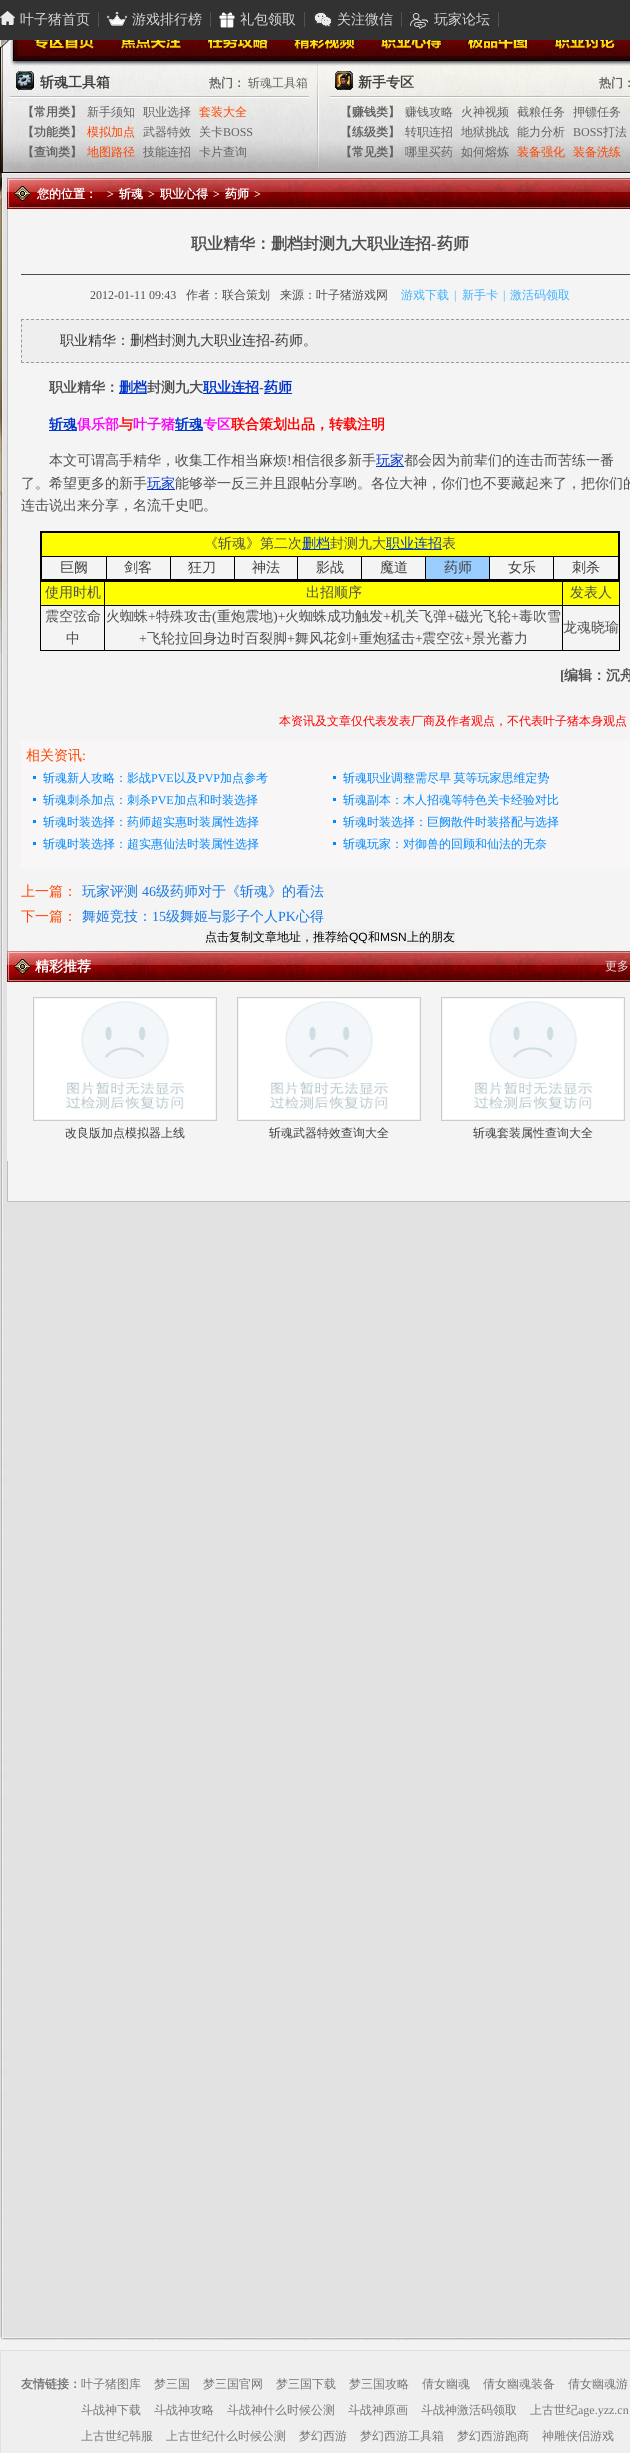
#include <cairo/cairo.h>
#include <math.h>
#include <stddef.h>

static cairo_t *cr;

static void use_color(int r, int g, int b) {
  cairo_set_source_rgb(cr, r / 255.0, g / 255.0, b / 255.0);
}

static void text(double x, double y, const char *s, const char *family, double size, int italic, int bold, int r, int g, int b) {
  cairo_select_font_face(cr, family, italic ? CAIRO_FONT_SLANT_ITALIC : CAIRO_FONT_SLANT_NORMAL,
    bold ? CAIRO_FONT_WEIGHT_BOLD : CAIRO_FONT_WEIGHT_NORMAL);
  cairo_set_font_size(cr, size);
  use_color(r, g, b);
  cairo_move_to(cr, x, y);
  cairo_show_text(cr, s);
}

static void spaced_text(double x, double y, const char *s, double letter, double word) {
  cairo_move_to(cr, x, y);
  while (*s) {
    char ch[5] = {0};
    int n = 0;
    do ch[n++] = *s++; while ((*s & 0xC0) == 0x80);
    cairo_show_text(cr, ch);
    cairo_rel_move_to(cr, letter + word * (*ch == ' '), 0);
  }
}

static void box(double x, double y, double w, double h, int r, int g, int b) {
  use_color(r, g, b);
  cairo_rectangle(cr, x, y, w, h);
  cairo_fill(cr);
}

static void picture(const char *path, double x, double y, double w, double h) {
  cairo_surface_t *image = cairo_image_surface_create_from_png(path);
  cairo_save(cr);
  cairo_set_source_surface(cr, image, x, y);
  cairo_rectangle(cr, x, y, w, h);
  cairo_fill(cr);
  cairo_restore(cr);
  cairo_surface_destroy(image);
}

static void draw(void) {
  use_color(242, 242, 242);
  cairo_paint(cr);
  box(0, 0, 630, 40, 50, 50, 50);
  picture("img_01.png", 0, 11, 15, 14);
  box(98, 12, 1, 15, 82, 82, 82);
  picture("img_02.png", 107, 12, 20, 14);
  box(210, 12, 1, 15, 82, 82, 82);
  picture("img_03.png", 219, 12, 16, 16);
  box(304, 12, 1, 15, 82, 82, 82);
  picture("img_04.png", 313, 11, 19, 17);
  box(401, 12, 1, 15, 82, 82, 82);
  picture("img_05.png", 410, 12, 18, 17);
  box(498, 12, 1, 15, 82, 82, 82);
  picture("img_06.png", 0, 40, 630, 25);
  picture("img_07.png", 0, 65, 630, 108);
  picture("img_08.png", 0, 653, 630, 1684);
  picture("img_09.png", 0, 173, 630, 480);
  picture("img_10.png", 7, 178, 623, 31);
  box(8, 209, 622, 992, 244, 244, 244);
  box(7, 1201, 623, 1, 190, 190, 190);
  box(7, 209, 1, 993, 190, 190, 190);
  box(21, 274, 609, 1, 76, 78, 79);
  box(21, 319, 609, 44, 238, 238, 238);
  cairo_new_path(cr);
  cairo_move_to(cr, 21, 319.5);
  cairo_line_to(cr, 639, 319.5);
  use_color(155, 155, 153);
  cairo_set_line_width(cr, 1);
  cairo_set_dash(cr, (double[]){3, 2}, 2, 0);
  cairo_stroke(cr);
  cairo_new_path(cr);
  cairo_move_to(cr, 21, 362.5);
  cairo_line_to(cr, 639, 362.5);
  cairo_stroke(cr);
  cairo_new_path(cr);
  cairo_move_to(cr, 21.5, 319);
  cairo_line_to(cr, 21.5, 363);
  cairo_set_dash(cr, (double[]){3, 2.12}, 2, 0);
  cairo_stroke(cr);
  box(119, 393, 28, 1, 0, 51, 204);
  box(203, 393, 56, 1, 0, 51, 204);
  box(264, 393, 28, 1, 0, 51, 204);
  box(49, 430, 28, 1, 0, 51, 204);
  box(175, 430, 28, 1, 0, 51, 204);
  box(376, 466, 28, 1, 0, 51, 204);
  box(147, 489, 28, 1, 0, 51, 204);
  box(40, 531, 580, 2, 0, 0, 0);
  box(553, 556, 67, 1, 0, 0, 0);
  box(618, 531, 2, 50, 0, 0, 0);
  box(553, 556, 1, 25, 0, 0, 0);
  box(489, 556, 65, 1, 0, 0, 0);
  box(489, 556, 1, 25, 0, 0, 0);
  box(425, 556, 65, 1, 0, 0, 0);
  box(425, 556, 1, 25, 0, 0, 0);
  box(361, 556, 65, 1, 0, 0, 0);
  box(361, 556, 1, 25, 0, 0, 0);
  box(297, 556, 65, 1, 0, 0, 0);
  box(297, 556, 1, 25, 0, 0, 0);
  box(234, 556, 64, 1, 0, 0, 0);
  box(234, 556, 1, 25, 0, 0, 0);
  box(170, 556, 65, 1, 0, 0, 0);
  box(170, 556, 1, 25, 0, 0, 0);
  box(106, 556, 65, 1, 0, 0, 0);
  box(106, 556, 1, 25, 0, 0, 0);
  box(40, 579, 580, 3, 0, 0, 0);
  box(41, 556, 66, 1, 0, 0, 0);
  box(40, 531, 2, 50, 0, 0, 0);
  box(42, 533, 576, 23, 255, 255, 0);
  box(302, 549, 28, 1, 0, 51, 204);
  box(386, 549, 56, 1, 0, 51, 204);
  box(426, 557, 63, 22, 153, 204, 255);
  box(619, 581, 1, 70, 0, 0, 0);
  box(40, 650, 580, 1, 0, 0, 0);
  box(40, 581, 1, 70, 0, 0, 0);
  box(41, 582, 63, 23, 255, 255, 0);
  box(105, 582, 457, 23, 255, 255, 0);
  box(562, 605, 58, 1, 0, 0, 0);
  box(562, 605, 1, 46, 0, 0, 0);
  box(104, 605, 459, 1, 0, 0, 0);
  box(104, 605, 1, 46, 0, 0, 0);
  box(40, 605, 65, 1, 0, 0, 0);
  box(104, 581, 1, 25, 0, 0, 0);
  box(563, 582, 56, 23, 255, 255, 0);
  box(562, 581, 1, 25, 0, 0, 0);
  box(21, 740, 609, 129, 248, 246, 246);
  box(33, 776, 3, 3, 0, 136, 254);
  box(333, 776, 3, 3, 0, 136, 254);
  box(33, 798, 3, 3, 0, 136, 254);
  box(333, 798, 3, 3, 0, 136, 254);
  box(33, 820, 3, 3, 0, 136, 254);
  box(333, 820, 3, 3, 0, 136, 254);
  box(33, 842, 3, 3, 0, 136, 254);
  box(333, 842, 3, 3, 0, 136, 254);
  box(205, 929, 250, 17, 239, 239, 239);
  picture("img_10.png", 7, 951, 623, 31);
  box(7, 982, 1, 179, 244, 244, 244);
  cairo_rectangle(cr, 33.5, 997.5, 183, 123);
  use_color(204, 204, 204);
  cairo_set_dash(cr, NULL, 0, 0);
  cairo_stroke(cr);
  picture("img_11.png", 35, 999, 180, 120);
  cairo_rectangle(cr, 237.5, 997.5, 183, 123);
  cairo_stroke(cr);
  picture("img_11.png", 239, 999, 180, 120);
  cairo_rectangle(cr, 441.5, 997.5, 183, 123);
  cairo_stroke(cr);
  picture("img_11.png", 443, 999, 180, 120);
  picture("img_12.png", 0, 2337, 630, 3);
  use_color(239, 239, 239);
  cairo_rectangle(cr, 0.5, 2350.5, 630, 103);
  cairo_fill_preserve(cr);
  use_color(222, 224, 227);
  cairo_stroke(cr);
  text(20, 24, "叶子猪首页", "WenQuanYi Zen Hei Medium", 14, 0, 0, 216, 216, 216);
  text(132, 24, "游戏排行榜", "WenQuanYi Zen Hei Medium", 14, 0, 0, 216, 216, 216);
  text(240, 24, "礼包领取", "WenQuanYi Zen Hei Medium", 14, 0, 0, 216, 216, 216);
  text(337, 24, "关注微信", "WenQuanYi Zen Hei Medium", 14, 0, 0, 216, 216, 216);
  text(434, 24, "玩家论坛", "WenQuanYi Zen Hei Medium", 14, 0, 0, 216, 216, 216);
  text(40, 87, "斩魂工具箱", "WenQuanYi Zen Hei", 14, 0, 1, 63, 63, 63);
  text(209, 87, "热门：", "WenQuanYi Zen Hei", 12, 0, 1, 98, 98, 98);
  text(248, 87, "斩魂工具箱", "WenQuanYi Zen Hei Medium", 12, 0, 0, 98, 98, 98);
  text(22, 116, "【常用类】", "WenQuanYi Zen Hei", 12, 0, 1, 98, 98, 98);
  text(87, 116, "新手须知", "WenQuanYi Zen Hei Medium", 12, 0, 0, 98, 98, 98);
  text(143, 116, "职业选择", "WenQuanYi Zen Hei Medium", 12, 0, 0, 98, 98, 98);
  text(199, 116, "套装大全", "WenQuanYi Zen Hei Medium", 12, 0, 0, 255, 68, 0);
  text(22, 136, "【功能类】", "WenQuanYi Zen Hei", 12, 0, 1, 98, 98, 98);
  text(87, 136, "模拟加点", "WenQuanYi Zen Hei Medium", 12, 0, 0, 255, 68, 0);
  text(143, 136, "武器特效", "WenQuanYi Zen Hei Medium", 12, 0, 0, 98, 98, 98);
  text(199, 136, "关卡", "WenQuanYi Zen Hei Medium", 12, 0, 0, 98, 98, 98);
  text(223, 136, "BOSS", "Liberation Serif", 12, 0, 0, 98, 98, 98);
  text(22, 156, "【查询类】", "WenQuanYi Zen Hei", 12, 0, 1, 98, 98, 98);
  text(87, 156, "地图路径", "WenQuanYi Zen Hei Medium", 12, 0, 0, 255, 68, 0);
  text(143, 156, "技能连招", "WenQuanYi Zen Hei Medium", 12, 0, 0, 98, 98, 98);
  text(199, 156, "卡片查询", "WenQuanYi Zen Hei Medium", 12, 0, 0, 98, 98, 98);
  text(358, 87, "新手专区", "WenQuanYi Zen Hei", 14, 0, 1, 63, 63, 63);
  text(599, 87, "热门：", "WenQuanYi Zen Hei", 12, 0, 1, 98, 98, 98);
  text(340, 116, "【赚钱类】", "WenQuanYi Zen Hei", 12, 0, 1, 98, 98, 98);
  text(405, 116, "赚钱攻略", "WenQuanYi Zen Hei Medium", 12, 0, 0, 98, 98, 98);
  text(461, 116, "火神视频", "WenQuanYi Zen Hei Medium", 12, 0, 0, 98, 98, 98);
  text(517, 116, "截粮任务", "WenQuanYi Zen Hei Medium", 12, 0, 0, 98, 98, 98);
  text(573, 116, "押镖任务", "WenQuanYi Zen Hei Medium", 12, 0, 0, 98, 98, 98);
  text(340, 136, "【练级类】", "WenQuanYi Zen Hei", 12, 0, 1, 98, 98, 98);
  text(405, 136, "转职连招", "WenQuanYi Zen Hei Medium", 12, 0, 0, 98, 98, 98);
  text(461, 136, "地狱挑战", "WenQuanYi Zen Hei Medium", 12, 0, 0, 98, 98, 98);
  text(517, 136, "能力分析", "WenQuanYi Zen Hei Medium", 12, 0, 0, 98, 98, 98);
  text(573, 136, "BOSS", "Liberation Serif", 12, 0, 0, 98, 98, 98);
  text(603, 136, "打法", "WenQuanYi Zen Hei Medium", 12, 0, 0, 98, 98, 98);
  text(340, 156, "【常见类】", "WenQuanYi Zen Hei", 12, 0, 1, 98, 98, 98);
  text(405, 156, "哪里买药", "WenQuanYi Zen Hei Medium", 12, 0, 0, 98, 98, 98);
  text(461, 156, "如何熔炼", "WenQuanYi Zen Hei Medium", 12, 0, 0, 98, 98, 98);
  text(517, 156, "装备强化", "WenQuanYi Zen Hei Medium", 12, 0, 0, 255, 68, 0);
  text(573, 156, "装备洗练", "WenQuanYi Zen Hei Medium", 12, 0, 0, 255, 68, 0);
  text(37, 198, "您的位置：", "WenQuanYi Zen Hei", 12, 0, 1, 255, 255, 255);
  text(107, 198, ">", "Liberation Serif", 12, 0, 1, 255, 255, 255);
  text(119, 198, "斩魂", "WenQuanYi Zen Hei", 12, 0, 1, 255, 255, 255);
  text(148, 198, ">", "Liberation Serif", 12, 0, 1, 255, 255, 255);
  text(160, 198, "职业心得", "WenQuanYi Zen Hei", 12, 0, 1, 255, 255, 255);
  text(213, 198, ">", "Liberation Serif", 12, 0, 1, 255, 255, 255);
  text(225, 198, "药师", "WenQuanYi Zen Hei", 12, 0, 1, 255, 255, 255);
  text(254, 198, ">", "Liberation Serif", 12, 0, 1, 255, 255, 255);
  text(191, 249, "职业精华：删档封测九大职业连招", "WenQuanYi Zen Hei", 16, 0, 1, 76, 78, 79);
  text(431, 249, "-", "Liberation Serif", 16, 0, 1, 76, 78, 79);
  text(437, 249, "药师", "WenQuanYi Zen Hei", 16, 0, 1, 76, 78, 79);
  text(90, 299, "2012-01-11 09:43", "Liberation Serif", 12, 0, 0, 76, 78, 79);
  text(186, 299, "作者：联合策划", "WenQuanYi Zen Hei Medium", 12, 0, 0, 76, 78, 79);
  text(280, 299, "来源：叶子猪游戏网", "WenQuanYi Zen Hei Medium", 12, 0, 0, 76, 78, 79);
  text(401, 299, "游戏下载", "WenQuanYi Zen Hei Medium", 12, 0, 0, 62, 178, 255);
  text(454, 299, "|", "Liberation Serif", 12, 0, 0, 62, 178, 255);
  text(462, 299, "新手卡", "WenQuanYi Zen Hei Medium", 12, 0, 0, 62, 178, 255);
  text(503, 299, "|", "Liberation Serif", 12, 0, 0, 62, 178, 255);
  text(510, 299, "激活码领取", "WenQuanYi Zen Hei Medium", 12, 0, 0, 62, 178, 255);
  text(60, 345, "职业精华：删档封测九大职业连招", "WenQuanYi Zen Hei Medium", 14, 0, 0, 51, 51, 51);
  text(270, 345, "-", "Liberation Serif", 14, 0, 0, 51, 51, 51);
  text(275, 345, "药师。", "WenQuanYi Zen Hei Medium", 14, 0, 0, 51, 51, 51);
  text(49, 392, "职业精华：", "WenQuanYi Zen Hei", 14, 0, 1, 76, 78, 79);
  text(119, 392, "删档", "WenQuanYi Zen Hei", 14, 0, 1, 0, 51, 204);
  text(147, 392, "封测九大", "WenQuanYi Zen Hei", 14, 0, 1, 76, 78, 79);
  text(203, 392, "职业连招", "WenQuanYi Zen Hei", 14, 0, 1, 0, 51, 204);
  text(259, 392, "-", "Liberation Serif", 14, 0, 1, 76, 78, 79);
  text(264, 392, "药师", "WenQuanYi Zen Hei", 14, 0, 1, 0, 51, 204);
  text(49, 429, "斩魂", "WenQuanYi Zen Hei", 14, 0, 1, 0, 51, 204);
  text(77, 429, "俱乐部", "WenQuanYi Zen Hei", 14, 0, 1, 255, 0, 255);
  text(119, 429, "与", "WenQuanYi Zen Hei", 14, 0, 1, 255, 0, 0);
  text(133, 429, "叶子猪", "WenQuanYi Zen Hei", 14, 0, 1, 255, 0, 255);
  text(175, 429, "斩魂", "WenQuanYi Zen Hei", 14, 0, 1, 0, 51, 204);
  text(203, 429, "专区", "WenQuanYi Zen Hei", 14, 0, 1, 255, 0, 255);
  text(231, 429, "联合策划出品，转载注明", "WenQuanYi Zen Hei", 14, 0, 1, 255, 0, 0);
  text(49, 465, "本文可谓高手精华，收集工作相当麻烦", "WenQuanYi Zen Hei Medium", 14, 0, 0, 76, 78, 79);
  text(287, 465, "!", "Liberation Serif", 14, 0, 0, 76, 78, 79);
  text(292, 465, "相信很多新手", "WenQuanYi Zen Hei Medium", 14, 0, 0, 76, 78, 79);
  text(376, 465, "玩家", "WenQuanYi Zen Hei Medium", 14, 0, 0, 0, 51, 204);
  text(404, 465, "都会因为前辈们的连击而苦练一番", "WenQuanYi Zen Hei Medium", 14, 0, 0, 76, 78, 79);
  text(21, 488, "了。希望更多的新手", "WenQuanYi Zen Hei Medium", 14, 0, 0, 76, 78, 79);
  text(147, 488, "玩家", "WenQuanYi Zen Hei Medium", 14, 0, 0, 0, 51, 204);
  text(175, 488, "能够举一反三并且跟帖分享哟。各位大神，你们也不要藏起来了，把你们的", "WenQuanYi Zen Hei Medium", 14, 0, 0, 76, 78, 79);
  text(21, 510, "连击说出来分享，名流千史吧。", "WenQuanYi Zen Hei Medium", 14, 0, 0, 76, 78, 79);
  text(204, 548, "《斩魂》第二次", "WenQuanYi Zen Hei Medium", 14, 0, 0, 76, 78, 79);
  text(302, 548, "删档", "WenQuanYi Zen Hei Medium", 14, 0, 0, 0, 51, 204);
  text(330, 548, "封测九大", "WenQuanYi Zen Hei Medium", 14, 0, 0, 76, 78, 79);
  text(386, 548, "职业连招", "WenQuanYi Zen Hei Medium", 14, 0, 0, 0, 51, 204);
  text(442, 548, "表", "WenQuanYi Zen Hei Medium", 14, 0, 0, 76, 78, 79);
  text(60, 572, "巨阙", "WenQuanYi Zen Hei Medium", 14, 0, 0, 63, 63, 63);
  text(124, 572, "剑客", "WenQuanYi Zen Hei Medium", 14, 0, 0, 63, 63, 63);
  text(188, 572, "狂刀", "WenQuanYi Zen Hei Medium", 14, 0, 0, 63, 63, 63);
  text(252, 572, "神法", "WenQuanYi Zen Hei Medium", 14, 0, 0, 63, 63, 63);
  text(316, 572, "影战", "WenQuanYi Zen Hei Medium", 14, 0, 0, 63, 63, 63);
  text(380, 572, "魔道", "WenQuanYi Zen Hei Medium", 14, 0, 0, 63, 63, 63);
  text(444, 572, "药师", "WenQuanYi Zen Hei Medium", 14, 0, 0, 63, 63, 63);
  text(508, 572, "女乐", "WenQuanYi Zen Hei Medium", 14, 0, 0, 63, 63, 63);
  text(572, 572, "刺杀", "WenQuanYi Zen Hei Medium", 14, 0, 0, 63, 63, 63);
  text(45, 597, "使用时机", "WenQuanYi Zen Hei Medium", 14, 0, 0, 76, 78, 79);
  text(306, 597, "出招顺序", "WenQuanYi Zen Hei Medium", 14, 0, 0, 76, 78, 79);
  text(570, 597, "发表人", "WenQuanYi Zen Hei Medium", 14, 0, 0, 76, 78, 79);
  text(45, 621, "震空弦命", "WenQuanYi Zen Hei Medium", 14, 0, 0, 76, 78, 79);
  text(66, 643, "中", "WenQuanYi Zen Hei Medium", 14, 0, 0, 76, 78, 79);
  text(106, 621, "火蜘蛛", "WenQuanYi Zen Hei Medium", 14, 0, 0, 76, 78, 79);
  text(148, 621, "+", "Liberation Serif", 14, 0, 0, 76, 78, 79);
  text(156, 621, "特殊攻击", "WenQuanYi Zen Hei Medium", 14, 0, 0, 76, 78, 79);
  text(212, 621, "(", "Liberation Serif", 14, 0, 0, 76, 78, 79);
  text(217, 621, "重炮震地", "WenQuanYi Zen Hei Medium", 14, 0, 0, 76, 78, 79);
  text(273, 621, ")+", "Liberation Serif", 14, 0, 0, 76, 78, 79);
  text(285, 621, "火蜘蛛成功触发", "WenQuanYi Zen Hei Medium", 14, 0, 0, 76, 78, 79);
  text(383, 621, "+", "Liberation Serif", 14, 0, 0, 76, 78, 79);
  text(391, 621, "机关飞弹", "WenQuanYi Zen Hei Medium", 14, 0, 0, 76, 78, 79);
  text(447, 621, "+", "Liberation Serif", 14, 0, 0, 76, 78, 79);
  text(455, 621, "磁光飞轮", "WenQuanYi Zen Hei Medium", 14, 0, 0, 76, 78, 79);
  text(511, 621, "+", "Liberation Serif", 14, 0, 0, 76, 78, 79);
  text(519, 621, "毒吹雪", "WenQuanYi Zen Hei Medium", 14, 0, 0, 76, 78, 79);
  text(139, 643, "+", "Liberation Serif", 14, 0, 0, 76, 78, 79);
  text(147, 643, "飞轮拉回身边时百裂脚", "WenQuanYi Zen Hei Medium", 14, 0, 0, 76, 78, 79);
  text(287, 643, "+", "Liberation Serif", 14, 0, 0, 76, 78, 79);
  text(295, 643, "舞风花剑", "WenQuanYi Zen Hei Medium", 14, 0, 0, 76, 78, 79);
  text(351, 643, "+", "Liberation Serif", 14, 0, 0, 76, 78, 79);
  text(359, 643, "重炮猛击", "WenQuanYi Zen Hei Medium", 14, 0, 0, 76, 78, 79);
  text(415, 643, "+", "Liberation Serif", 14, 0, 0, 76, 78, 79);
  text(422, 643, "震空弦", "WenQuanYi Zen Hei Medium", 14, 0, 0, 76, 78, 79);
  text(464, 643, "+", "Liberation Serif", 14, 0, 0, 76, 78, 79);
  text(472, 643, "景光蓄力", "WenQuanYi Zen Hei Medium", 14, 0, 0, 76, 78, 79);
  text(563, 632, "龙魂晓瑜", "WenQuanYi Zen Hei Medium", 14, 0, 0, 76, 78, 79);
  text(560, 680, "[", "Liberation Serif", 14, 0, 1, 76, 78, 79);
  text(564, 680, "编辑：沉舟", "WenQuanYi Zen Hei", 14, 0, 1, 76, 78, 79);
  text(279, 725, "本资讯及文章仅代表发表厂商及作者观点，不代表叶子猪本身观点", "WenQuanYi Zen Hei Medium", 12, 0, 0, 255, 0, 0);
  text(26, 760, "相关资讯", "WenQuanYi Zen Hei Medium", 14, 0, 0, 255, 68, 0);
  text(82, 760, ":", "Liberation Serif", 14, 0, 0, 255, 68, 0);
  text(43, 782, "斩魂新人攻略：影战", "WenQuanYi Zen Hei Medium", 12, 0, 0, 0, 136, 255);
  text(151, 782, "PVE", "Liberation Serif", 12, 0, 0, 0, 136, 255);
  text(174, 782, "以及", "WenQuanYi Zen Hei Medium", 12, 0, 0, 0, 136, 255);
  text(198, 782, "PVP", "Liberation Serif", 12, 0, 0, 0, 136, 255);
  text(220, 782, "加点参考", "WenQuanYi Zen Hei Medium", 12, 0, 0, 0, 136, 255);
  spaced_text(343, 782, "斩魂职业调整需尽早 莫等玩家思维定势", 0, -1);
  text(43, 804, "斩魂刺杀加点：刺杀", "WenQuanYi Zen Hei Medium", 12, 0, 0, 0, 136, 255);
  text(151, 804, "PVE", "Liberation Serif", 12, 0, 0, 0, 136, 255);
  text(174, 804, "加点和时装选择", "WenQuanYi Zen Hei Medium", 12, 0, 0, 0, 136, 255);
  text(343, 804, "斩魂副本：木人招魂等特色关卡经验对比", "WenQuanYi Zen Hei Medium", 12, 0, 0, 0, 136, 255);
  text(43, 826, "斩魂时装选择：药师超实惠时装属性选择", "WenQuanYi Zen Hei Medium", 12, 0, 0, 0, 136, 255);
  text(343, 826, "斩魂时装选择：巨阙散件时装搭配与选择", "WenQuanYi Zen Hei Medium", 12, 0, 0, 0, 136, 255);
  text(43, 848, "斩魂时装选择：超实惠仙法时装属性选择", "WenQuanYi Zen Hei Medium", 12, 0, 0, 0, 136, 255);
  text(343, 848, "斩魂玩家：对御兽的回顾和仙法的无奈", "WenQuanYi Zen Hei Medium", 12, 0, 0, 0, 136, 255);
  text(21, 896, "上一篇：", "WenQuanYi Zen Hei Medium", 14, 0, 0, 255, 68, 0);
  text(82, 896, "玩家评测", "WenQuanYi Zen Hei Medium", 14, 0, 0, 23, 120, 229);
  text(142, 896, "46", "Liberation Serif", 14, 0, 0, 23, 120, 229);
  text(156, 896, "级药师对于《斩魂》的看法", "WenQuanYi Zen Hei Medium", 14, 0, 0, 23, 120, 229);
  text(21, 921, "下一篇：", "WenQuanYi Zen Hei Medium", 14, 0, 0, 255, 68, 0);
  text(82, 921, "舞姬竞技：", "WenQuanYi Zen Hei Medium", 14, 0, 0, 23, 120, 229);
  text(152, 921, "15", "Liberation Serif", 14, 0, 0, 23, 120, 229);
  text(166, 921, "级舞姬与影子个人", "WenQuanYi Zen Hei Medium", 14, 0, 0, 23, 120, 229);
  text(278, 921, "PK", "Liberation Serif", 14, 0, 0, 23, 120, 229);
  text(296, 921, "心得", "WenQuanYi Zen Hei Medium", 14, 0, 0, 23, 120, 229);
  text(205, 941, "点击复制文章地址，推荐给", "WenQuanYi Zen Hei Medium", 12, 0, 0, 0, 0, 0);
  text(349, 941, "QQ", "Liberation Sans", 12, 0, 0, 0, 0, 0);
  text(368, 941, "和", "WenQuanYi Zen Hei Medium", 12, 0, 0, 0, 0, 0);
  text(380, 941, "MSN", "Liberation Sans", 12, 0, 0, 0, 0, 0);
  text(407, 941, "上的朋友", "WenQuanYi Zen Hei Medium", 12, 0, 0, 0, 0, 0);
  text(35, 971, "精彩推荐", "WenQuanYi Zen Hei", 14, 0, 1, 255, 255, 255);
  text(605, 970, "更多", "WenQuanYi Zen Hei Medium", 12, 0, 0, 226, 226, 226);
  text(65, 1137, "改良版加点模拟器上线", "WenQuanYi Zen Hei Medium", 12, 0, 0, 63, 63, 63);
  text(269, 1137, "斩魂武器特效查询大全", "WenQuanYi Zen Hei Medium", 12, 0, 0, 63, 63, 63);
  text(473, 1137, "斩魂套装属性查询大全", "WenQuanYi Zen Hei Medium", 12, 0, 0, 63, 63, 63);
  text(21, 2388, "友情链接：", "WenQuanYi Zen Hei", 12, 0, 1, 117, 117, 117);
  text(81, 2388, "叶子猪图库", "WenQuanYi Zen Hei Medium", 12, 0, 0, 117, 117, 117);
  text(154, 2388, "梦三国", "WenQuanYi Zen Hei Medium", 12, 0, 0, 117, 117, 117);
  text(203, 2388, "梦三国官网", "WenQuanYi Zen Hei Medium", 12, 0, 0, 117, 117, 117);
  text(276, 2388, "梦三国下载", "WenQuanYi Zen Hei Medium", 12, 0, 0, 117, 117, 117);
  text(349, 2388, "梦三国攻略", "WenQuanYi Zen Hei Medium", 12, 0, 0, 117, 117, 117);
  text(422, 2388, "倩女幽魂", "WenQuanYi Zen Hei Medium", 12, 0, 0, 117, 117, 117);
  text(483, 2388, "倩女幽魂装备", "WenQuanYi Zen Hei Medium", 12, 0, 0, 117, 117, 117);
  text(568, 2388, "倩女幽魂游", "WenQuanYi Zen Hei Medium", 12, 0, 0, 117, 117, 117);
  text(81, 2414, "斗战神下载", "WenQuanYi Zen Hei Medium", 12, 0, 0, 117, 117, 117);
  text(154, 2414, "斗战神攻略", "WenQuanYi Zen Hei Medium", 12, 0, 0, 117, 117, 117);
  text(227, 2414, "斗战神什么时候公测", "WenQuanYi Zen Hei Medium", 12, 0, 0, 117, 117, 117);
  text(348, 2414, "斗战神原画", "WenQuanYi Zen Hei Medium", 12, 0, 0, 117, 117, 117);
  text(421, 2414, "斗战神激活码领取", "WenQuanYi Zen Hei Medium", 12, 0, 0, 117, 117, 117);
  text(530, 2414, "上古世纪", "WenQuanYi Zen Hei Medium", 12, 0, 0, 117, 117, 117);
  text(578, 2414, "age.yzz.cn", "Liberation Serif", 12, 0, 0, 117, 117, 117);
  text(81, 2440, "上古世纪韩服", "WenQuanYi Zen Hei Medium", 12, 0, 0, 117, 117, 117);
  text(166, 2440, "上古世纪什么时候公测", "WenQuanYi Zen Hei Medium", 12, 0, 0, 117, 117, 117);
  text(299, 2440, "梦幻西游", "WenQuanYi Zen Hei Medium", 12, 0, 0, 117, 117, 117);
  text(360, 2440, "梦幻西游工具箱", "WenQuanYi Zen Hei Medium", 12, 0, 0, 117, 117, 117);
  text(457, 2440, "梦幻西游跑商", "WenQuanYi Zen Hei Medium", 12, 0, 0, 117, 117, 117);
  text(542, 2440, "神雕侠侣游戏", "WenQuanYi Zen Hei Medium", 12, 0, 0, 117, 117, 117);
}

int main(void) {
  cairo_surface_t *surface = cairo_image_surface_create(CAIRO_FORMAT_RGB24, 630, 2453);
  cr = cairo_create(surface);
  cairo_font_options_t *options = cairo_font_options_create();
  cairo_font_options_set_hint_metrics(options, CAIRO_HINT_METRICS_OFF);
  cairo_font_options_set_hint_style(options, CAIRO_HINT_STYLE_NONE);
  cairo_set_font_options(cr, options);
  cairo_set_miter_limit(cr, 4);
  draw();
  cairo_surface_write_to_png(surface, "out.png");
  cairo_font_options_destroy(options);
  cairo_destroy(cr);
  cairo_surface_destroy(surface);
  return 0;
}
